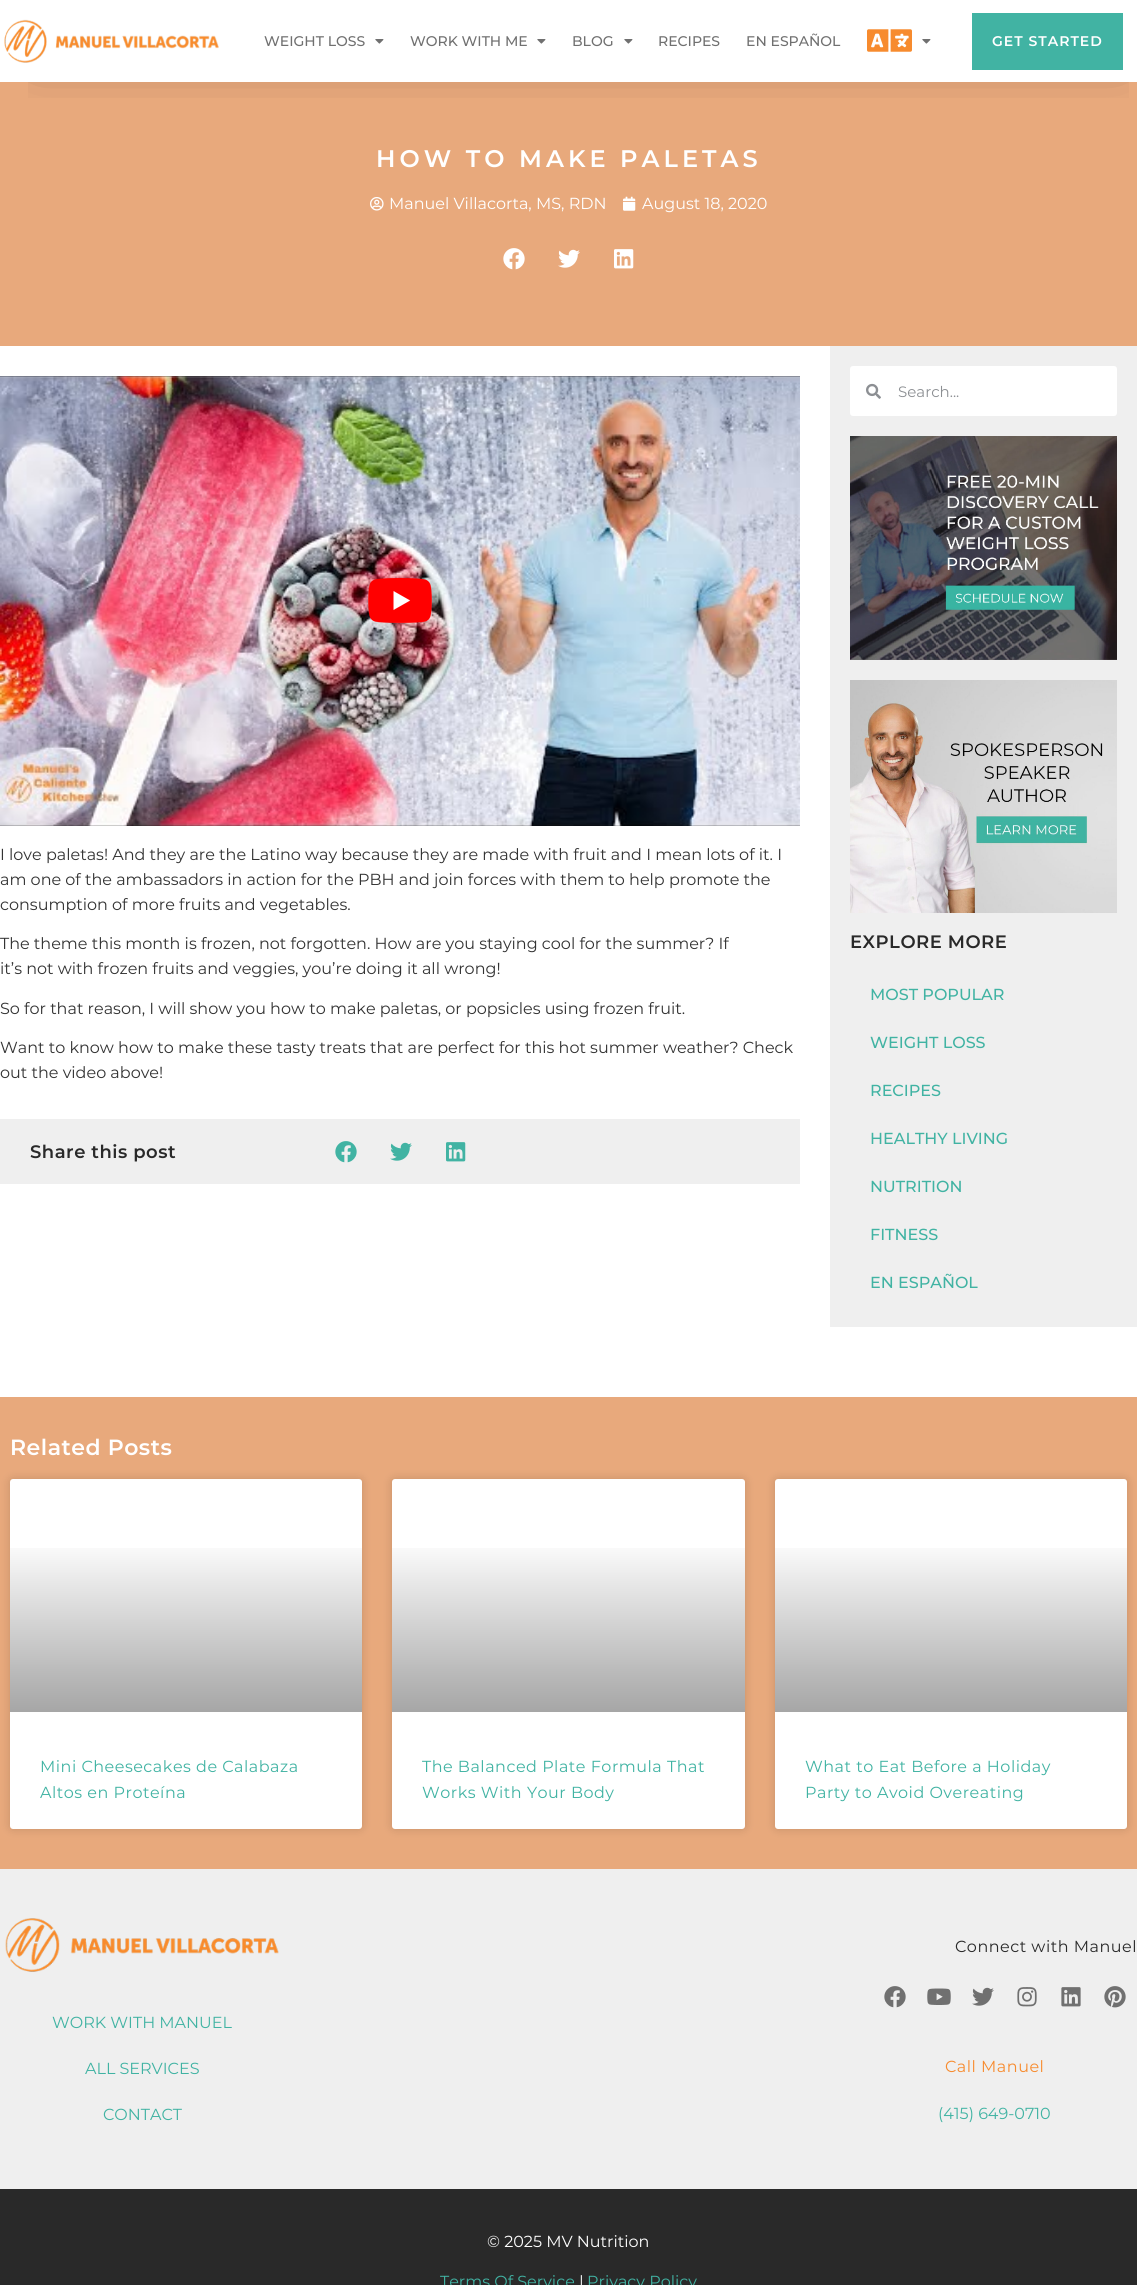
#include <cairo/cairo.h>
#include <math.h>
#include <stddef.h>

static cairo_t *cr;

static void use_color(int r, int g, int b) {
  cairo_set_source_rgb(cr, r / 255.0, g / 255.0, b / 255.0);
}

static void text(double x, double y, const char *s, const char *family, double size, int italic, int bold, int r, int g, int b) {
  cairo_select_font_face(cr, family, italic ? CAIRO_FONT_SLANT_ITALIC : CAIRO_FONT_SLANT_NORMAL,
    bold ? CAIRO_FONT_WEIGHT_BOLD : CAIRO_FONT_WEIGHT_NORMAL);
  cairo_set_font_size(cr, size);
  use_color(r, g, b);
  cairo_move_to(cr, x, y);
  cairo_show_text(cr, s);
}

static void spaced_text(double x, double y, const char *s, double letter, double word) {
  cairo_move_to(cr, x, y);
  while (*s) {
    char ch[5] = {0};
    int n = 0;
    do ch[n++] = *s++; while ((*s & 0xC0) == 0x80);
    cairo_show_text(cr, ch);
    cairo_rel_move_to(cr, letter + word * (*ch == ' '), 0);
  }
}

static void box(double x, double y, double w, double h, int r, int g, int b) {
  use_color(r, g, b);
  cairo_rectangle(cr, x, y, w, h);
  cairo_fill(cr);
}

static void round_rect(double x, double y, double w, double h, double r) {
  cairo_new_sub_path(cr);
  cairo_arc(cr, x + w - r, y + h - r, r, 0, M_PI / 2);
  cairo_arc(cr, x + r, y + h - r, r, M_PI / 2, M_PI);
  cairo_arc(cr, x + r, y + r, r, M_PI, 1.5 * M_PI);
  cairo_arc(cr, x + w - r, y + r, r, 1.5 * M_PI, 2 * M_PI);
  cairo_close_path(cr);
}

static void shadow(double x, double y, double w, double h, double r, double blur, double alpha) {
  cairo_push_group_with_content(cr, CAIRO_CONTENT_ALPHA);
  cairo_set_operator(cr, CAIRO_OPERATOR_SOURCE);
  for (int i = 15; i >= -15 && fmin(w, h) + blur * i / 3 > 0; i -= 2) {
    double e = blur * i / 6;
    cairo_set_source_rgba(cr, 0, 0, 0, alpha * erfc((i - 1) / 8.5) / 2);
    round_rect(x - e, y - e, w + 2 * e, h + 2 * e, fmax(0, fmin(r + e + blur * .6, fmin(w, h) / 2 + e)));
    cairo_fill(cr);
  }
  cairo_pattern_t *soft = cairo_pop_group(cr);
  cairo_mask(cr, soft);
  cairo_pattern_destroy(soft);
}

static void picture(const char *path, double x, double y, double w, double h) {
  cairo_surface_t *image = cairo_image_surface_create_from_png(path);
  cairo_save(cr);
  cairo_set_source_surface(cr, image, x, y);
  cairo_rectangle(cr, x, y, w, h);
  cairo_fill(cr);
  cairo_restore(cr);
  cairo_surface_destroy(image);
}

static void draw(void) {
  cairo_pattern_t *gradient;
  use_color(255, 255, 255);
  cairo_paint(cr);
  box(0, 82, 1137, 264, 232, 169, 124);
  cairo_save(cr);
  cairo_rectangle(cr, 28, 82, 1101, 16);
  cairo_clip(cr);
  use_color(0, 0, 0);
  shadow(36, 27, 1085, 30, 0, 27, 0.34);
  cairo_restore(cr);
  picture("img_01.png", 4, 19, 215, 44);
  picture("img_02.png", 375, 39, 9, 5);
  picture("img_02.png", 537, 39, 9, 5);
  picture("img_02.png", 624, 39, 9, 5);
  picture("img_03.png", 867, 29, 45, 23);
  picture("img_02.png", 922, 39, 9, 5);
  box(972, 13, 151, 57, 65, 179, 163);
  picture("img_04.png", 370, 197, 14, 14);
  picture("img_05.png", 623, 196, 13, 15);
  picture("img_06.png", 503, 248, 22, 22);
  picture("img_07.png", 558, 249, 22, 19);
  picture("img_08.png", 614, 249, 20, 20);
  picture("img_09.png", 0, 376, 800, 450);
  picture("img_10.png", 368, 578, 64, 45);
  box(0, 1119, 800, 65, 239, 239, 239);
  picture("img_11.png", 335, 1141, 22, 22);
  picture("img_12.png", 390, 1142, 22, 19);
  picture("img_13.png", 446, 1142, 20, 20);
  box(830, 346, 307, 981, 239, 239, 239);
  use_color(255, 255, 255);
  round_rect(850, 366, 267, 50, 3);
  cairo_fill(cr);
  picture("img_14.png", 866, 383, 15, 16);
  picture("img_15.png", 850, 436, 267, 224);
  picture("img_16.png", 850, 680, 267, 233);
  box(0, 1397, 1137, 472, 232, 169, 124);
  use_color(0, 0, 0);
  shadow(10, 1479, 352, 350, 3, 5, 0.15);
  use_color(255, 255, 255);
  round_rect(10, 1479, 352, 350, 3);
  cairo_fill(cr);
  gradient = cairo_pattern_create_linear(186, 1712, 186, 1479);
  cairo_pattern_add_color_stop_rgba(gradient, 0, 0, 0, 0, 0.35);
  cairo_pattern_add_color_stop_rgba(gradient, 0.75, 0, 0, 0, 0);
  cairo_set_source(cr, gradient);
  cairo_pattern_destroy(gradient);
  cairo_rectangle(cr, 10, 1548, 352, 164);
  cairo_fill(cr);
  use_color(0, 0, 0);
  shadow(392, 1479, 353, 350, 3, 5, 0.15);
  use_color(255, 255, 255);
  round_rect(392, 1479, 353, 350, 3);
  cairo_fill(cr);
  gradient = cairo_pattern_create_linear(569, 1712, 569, 1479);
  cairo_pattern_add_color_stop_rgba(gradient, 0, 0, 0, 0, 0.35);
  cairo_pattern_add_color_stop_rgba(gradient, 0.75, 0, 0, 0, 0);
  cairo_set_source(cr, gradient);
  cairo_pattern_destroy(gradient);
  cairo_rectangle(cr, 392, 1548, 353, 164);
  cairo_fill(cr);
  use_color(0, 0, 0);
  shadow(775, 1479, 352, 350, 3, 5, 0.15);
  use_color(255, 255, 255);
  round_rect(775, 1479, 352, 350, 3);
  cairo_fill(cr);
  gradient = cairo_pattern_create_linear(951, 1712, 951, 1479);
  cairo_pattern_add_color_stop_rgba(gradient, 0, 0, 0, 0, 0.35);
  cairo_pattern_add_color_stop_rgba(gradient, 0.75, 0, 0, 0, 0);
  cairo_set_source(cr, gradient);
  cairo_pattern_destroy(gradient);
  cairo_rectangle(cr, 775, 1548, 352, 164);
  cairo_fill(cr);
  box(0, 1869, 1137, 320, 239, 239, 239);
  picture("img_17.png", 5, 1918, 274, 54);
  picture("img_18.png", 884, 1986, 22, 22);
  picture("img_19.png", 927, 1988, 24, 17);
  picture("img_20.png", 972, 1987, 22, 19);
  picture("img_21.png", 1017, 1987, 20, 20);
  picture("img_22.png", 1061, 1987, 20, 20);
  picture("img_23.png", 1104, 1986, 22, 22);
  box(0, 2189, 1137, 96, 41, 41, 41);
  text(264, 46, "WEIGHT LOSS", "Montserrat Medium", 14, 0, 0, 112, 112, 112);
  text(410, 46, "WORK WITH ME", "Montserrat Medium", 14, 0, 0, 112, 112, 112);
  text(572, 46, "BLOG", "Montserrat Medium", 14, 0, 0, 112, 112, 112);
  text(658, 46, "RECIPES", "Montserrat Medium", 14, 0, 0, 112, 112, 112);
  text(746, 46, "EN ESPAÑOL", "Montserrat Medium", 14, 0, 0, 112, 112, 112);
  cairo_select_font_face(cr, "Montserrat SemiBold", CAIRO_FONT_SLANT_NORMAL, CAIRO_FONT_WEIGHT_NORMAL);
  use_color(255, 255, 255);
  spaced_text(992, 46, "GET STARTED", 1, 0);
  cairo_set_font_size(cr, 24);
  spaced_text(376, 167, "HOW TO MAKE PALETAS", 4, 0);
  text(389, 209, "Manuel Villacorta, MS, RDN", "Montserrat", 16, 0, 0, 255, 255, 255);
  text(642, 209, "August 18, 2020", "Montserrat", 16, 0, 0, 255, 255, 255);
  text(0, 860, "I love paletas! And they are the Latino way because they are made with fruit and I mean lots of it. I", "Montserrat", 16, 0, 0, 51, 51, 51);
  text(0, 885, "am one of the ambassadors in action for the PBH and join forces with them to help promote the", "Montserrat", 16, 0, 0, 51, 51, 51);
  text(0, 910, "consumption of more fruits and vegetables.", "Montserrat", 16, 0, 0, 51, 51, 51);
  text(0, 949, "The theme this month is frozen, not forgotten. How are you staying cool for the summer? If", "Montserrat", 16, 0, 0, 51, 51, 51);
  text(0, 974, "it’s not with frozen fruits and veggies, you’re doing it all wrong!", "Montserrat", 16, 0, 0, 51, 51, 51);
  text(0, 1014, "So for that reason, I will show you how to make paletas, or popsicles using frozen fruit.", "Montserrat", 16, 0, 0, 51, 51, 51);
  text(0, 1053, "Want to know how to make these tasty treats that are perfect for this hot summer weather? Check", "Montserrat", 16, 0, 0, 51, 51, 51);
  text(0, 1078, "out the video above!", "Montserrat", 16, 0, 0, 51, 51, 51);
  cairo_select_font_face(cr, "Montserrat SemiBold", CAIRO_FONT_SLANT_NORMAL, CAIRO_FONT_WEIGHT_NORMAL);
  cairo_set_font_size(cr, 18);
  use_color(41, 41, 41);
  spaced_text(30, 1158, "Share this post", 0.5, 0);
  text(898, 397, "Search...", "Montserrat", 15, 0, 0, 140, 143, 147);
  cairo_select_font_face(cr, "Montserrat SemiBold", CAIRO_FONT_SLANT_NORMAL, CAIRO_FONT_WEIGHT_NORMAL);
  cairo_set_font_size(cr, 18);
  use_color(41, 41, 41);
  spaced_text(850, 948, "EXPLORE MORE", 0.5, 0);
  text(870, 1000, "MOST POPULAR", "Montserrat Medium", 16, 0, 0, 65, 179, 163);
  text(870, 1048, "WEIGHT LOSS", "Montserrat Medium", 16, 0, 0, 65, 179, 163);
  text(870, 1096, "RECIPES", "Montserrat Medium", 16, 0, 0, 65, 179, 163);
  text(870, 1144, "HEALTHY LIVING", "Montserrat Medium", 16, 0, 0, 65, 179, 163);
  text(870, 1192, "NUTRITION", "Montserrat Medium", 16, 0, 0, 65, 179, 163);
  text(870, 1240, "FITNESS", "Montserrat Medium", 16, 0, 0, 65, 179, 163);
  text(870, 1288, "EN ESPAÑOL", "Montserrat Medium", 16, 0, 0, 65, 179, 163);
  cairo_select_font_face(cr, "Montserrat SemiBold", CAIRO_FONT_SLANT_NORMAL, CAIRO_FONT_WEIGHT_NORMAL);
  cairo_set_font_size(cr, 22);
  use_color(255, 255, 255);
  spaced_text(10, 1455, "Related Posts", 0.5, 0);
  cairo_select_font_face(cr, "Montserrat", CAIRO_FONT_SLANT_NORMAL, CAIRO_FONT_WEIGHT_NORMAL);
  cairo_set_font_size(cr, 16);
  use_color(65, 179, 163);
  spaced_text(40, 1772, "Mini Cheesecakes de Calabaza", 0.5, 0);
  spaced_text(40, 1798, "Altos en Proteína", 0.5, 0);
  spaced_text(422, 1772, "The Balanced Plate Formula That", 0.5, 0);
  spaced_text(422, 1798, "Works With Your Body", 0.5, 0);
  spaced_text(805, 1772, "What to Eat Before a Holiday", 0.5, 0);
  spaced_text(805, 1798, "Party to Avoid Overeating", 0.5, 0);
  text(52, 2028, "WORK WITH MANUEL", "Montserrat", 16, 0, 0, 65, 179, 163);
  text(85, 2074, "ALL SERVICES", "Montserrat", 16, 0, 0, 65, 179, 163);
  text(103, 2120, "CONTACT", "Montserrat", 16, 0, 0, 65, 179, 163);
  use_color(41, 41, 41);
  spaced_text(955, 1952, "Connect with Manuel", 0.5, 0);
  use_color(247, 139, 46);
  spaced_text(945, 2072, "Call Manuel", 0.5, 0);
  text(938, 2119, "(415) 649-0710", "Montserrat", 16, 0, 0, 65, 179, 163);
  text(487, 2247, "© 2025 MV Nutrition", "Montserrat", 16, 0, 0, 255, 255, 255);
  text(440, 2287, "Terms Of Service", "Montserrat", 16, 0, 0, 65, 179, 163);
  text(579, 2287, "|", "Montserrat", 16, 0, 0, 255, 255, 255);
  text(587, 2287, "Privacy Policy", "Montserrat", 16, 0, 0, 65, 179, 163);
}

int main(void) {
  cairo_surface_t *surface = cairo_image_surface_create(CAIRO_FORMAT_RGB24, 1137, 2285);
  cr = cairo_create(surface);
  cairo_font_options_t *options = cairo_font_options_create();
  cairo_font_options_set_hint_metrics(options, CAIRO_HINT_METRICS_OFF);
  cairo_font_options_set_hint_style(options, CAIRO_HINT_STYLE_NONE);
  cairo_set_font_options(cr, options);
  cairo_set_miter_limit(cr, 4);
  draw();
  cairo_surface_write_to_png(surface, "out.png");
  cairo_font_options_destroy(options);
  cairo_destroy(cr);
  cairo_surface_destroy(surface);
  return 0;
}
